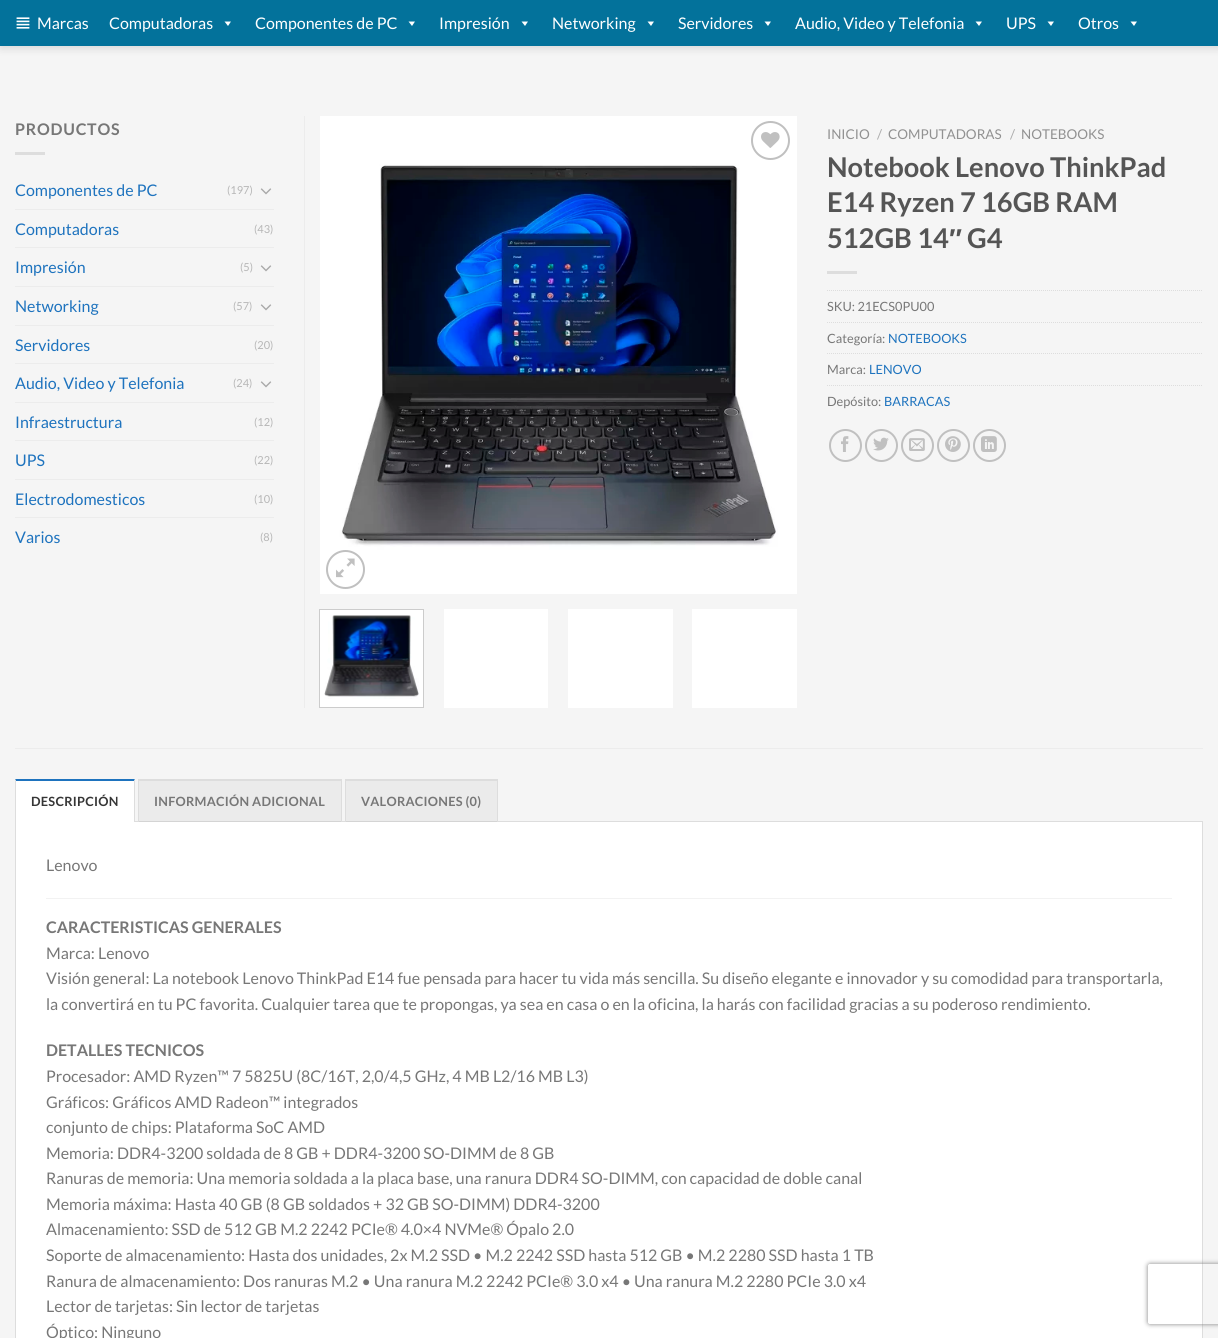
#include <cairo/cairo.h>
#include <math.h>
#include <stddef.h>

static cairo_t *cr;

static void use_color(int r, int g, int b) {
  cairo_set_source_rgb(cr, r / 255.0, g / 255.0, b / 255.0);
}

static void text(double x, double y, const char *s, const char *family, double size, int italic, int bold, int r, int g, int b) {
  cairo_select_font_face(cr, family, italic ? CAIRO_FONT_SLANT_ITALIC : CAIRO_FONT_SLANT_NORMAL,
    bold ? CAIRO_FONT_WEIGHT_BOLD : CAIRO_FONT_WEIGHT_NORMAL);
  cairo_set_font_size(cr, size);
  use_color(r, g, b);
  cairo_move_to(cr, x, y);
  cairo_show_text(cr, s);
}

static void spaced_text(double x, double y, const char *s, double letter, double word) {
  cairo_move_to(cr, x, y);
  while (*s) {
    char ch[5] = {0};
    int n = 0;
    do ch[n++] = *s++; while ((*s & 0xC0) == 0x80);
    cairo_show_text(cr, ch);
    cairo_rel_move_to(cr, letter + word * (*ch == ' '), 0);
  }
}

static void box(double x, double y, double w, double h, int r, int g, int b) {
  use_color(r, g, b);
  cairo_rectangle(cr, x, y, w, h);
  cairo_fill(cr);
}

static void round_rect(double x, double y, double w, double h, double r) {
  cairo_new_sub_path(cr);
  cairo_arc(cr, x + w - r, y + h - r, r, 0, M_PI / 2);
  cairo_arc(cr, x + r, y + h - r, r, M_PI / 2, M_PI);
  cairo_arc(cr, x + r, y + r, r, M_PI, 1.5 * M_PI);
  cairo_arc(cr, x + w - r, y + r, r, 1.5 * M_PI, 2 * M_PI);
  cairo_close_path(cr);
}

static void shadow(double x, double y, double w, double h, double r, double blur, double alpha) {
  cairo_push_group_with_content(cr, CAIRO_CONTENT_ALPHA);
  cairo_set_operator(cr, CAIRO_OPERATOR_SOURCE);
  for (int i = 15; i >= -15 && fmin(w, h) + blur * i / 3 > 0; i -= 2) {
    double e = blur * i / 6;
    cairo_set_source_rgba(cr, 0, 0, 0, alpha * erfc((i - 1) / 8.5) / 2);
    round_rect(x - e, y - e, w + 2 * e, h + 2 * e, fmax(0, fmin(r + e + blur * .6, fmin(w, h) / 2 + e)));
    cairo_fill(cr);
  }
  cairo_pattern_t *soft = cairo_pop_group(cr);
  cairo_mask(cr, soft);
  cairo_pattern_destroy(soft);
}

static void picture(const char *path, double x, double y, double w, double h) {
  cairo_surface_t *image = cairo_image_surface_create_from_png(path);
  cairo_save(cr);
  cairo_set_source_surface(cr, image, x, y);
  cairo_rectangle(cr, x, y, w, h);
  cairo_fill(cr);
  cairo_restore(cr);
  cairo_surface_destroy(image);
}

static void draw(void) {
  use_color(245, 245, 245);
  cairo_paint(cr);
  use_color(0, 0, 0);
  shadow(1, 1, 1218, 46, 0, 5, 0.15);
  box(0, 0, 1218, 46, 3, 114, 155);
  picture("img_01.png", 16, 17, 14, 12);
  use_color(255, 255, 255);
  cairo_new_path(cr);
  cairo_move_to(cr, 231, 21.5);
  cairo_line_to(cr, 228, 26);
  cairo_line_to(cr, 224.5, 21.5);
  cairo_close_path(cr);
  cairo_fill(cr);
  cairo_new_path(cr);
  cairo_move_to(cr, 415, 21.5);
  cairo_line_to(cr, 412, 26);
  cairo_line_to(cr, 408.5, 21.5);
  cairo_close_path(cr);
  cairo_fill(cr);
  cairo_new_path(cr);
  cairo_move_to(cr, 528, 21.5);
  cairo_line_to(cr, 525, 26);
  cairo_line_to(cr, 521.5, 21.5);
  cairo_close_path(cr);
  cairo_fill(cr);
  cairo_new_path(cr);
  cairo_move_to(cr, 654, 21.5);
  cairo_line_to(cr, 651, 26);
  cairo_line_to(cr, 647.5, 21.5);
  cairo_close_path(cr);
  cairo_fill(cr);
  cairo_new_path(cr);
  cairo_move_to(cr, 771, 21.5);
  cairo_line_to(cr, 768, 26);
  cairo_line_to(cr, 764.5, 21.5);
  cairo_close_path(cr);
  cairo_fill(cr);
  cairo_new_path(cr);
  cairo_move_to(cr, 982, 21.5);
  cairo_line_to(cr, 979, 26);
  cairo_line_to(cr, 975.5, 21.5);
  cairo_close_path(cr);
  cairo_fill(cr);
  cairo_new_path(cr);
  cairo_move_to(cr, 1054, 21.5);
  cairo_line_to(cr, 1051, 26);
  cairo_line_to(cr, 1047.5, 21.5);
  cairo_close_path(cr);
  cairo_fill(cr);
  cairo_new_path(cr);
  cairo_move_to(cr, 1137, 21.5);
  cairo_line_to(cr, 1134, 26);
  cairo_line_to(cr, 1130.5, 21.5);
  cairo_close_path(cr);
  cairo_fill(cr);
  box(304, 116, 1, 592, 236, 236, 236);
  box(15, 152, 30, 3, 221, 221, 221);
  picture("img_02.png", 260, 188, 12, 7);
  box(15, 209, 259, 1, 236, 236, 236);
  box(15, 247, 259, 1, 236, 236, 236);
  picture("img_02.png", 260, 265, 12, 7);
  box(15, 286, 259, 1, 236, 236, 236);
  picture("img_02.png", 260, 304, 12, 7);
  box(15, 325, 259, 1, 236, 236, 236);
  box(15, 363, 259, 1, 236, 236, 236);
  picture("img_02.png", 260, 381, 12, 7);
  box(15, 402, 259, 1, 236, 236, 236);
  box(15, 440, 259, 1, 236, 236, 236);
  box(15, 479, 259, 1, 236, 236, 236);
  box(15, 517, 259, 1, 236, 236, 236);
  picture("img_03.png", 320, 116, 477, 478);
  cairo_arc(cr, 770.5, 140.5, 18.5, 0, 2 * M_PI);
  use_color(192, 192, 192);
  cairo_stroke(cr);
  picture("img_04.png", 761, 132, 19, 16);
  cairo_arc(cr, 345.5, 569.5, 18.5, 0, 2 * M_PI);
  cairo_stroke(cr);
  picture("img_05.png", 336, 558, 19, 20);
  use_color(255, 255, 255);
  cairo_rectangle(cr, 319.5, 609.5, 104, 98);
  cairo_fill_preserve(cr);
  use_color(204, 204, 204);
  cairo_set_line_width(cr, 1);
  cairo_stroke(cr);
  picture("img_06.png", 324, 615, 95, 84);
  box(444, 609, 104, 99, 255, 255, 255);
  box(568, 609, 105, 99, 255, 255, 255);
  box(692, 609, 105, 99, 255, 255, 255);
  box(827, 271, 30, 3, 221, 221, 221);
  cairo_new_path(cr);
  cairo_move_to(cr, 827, 290.5);
  cairo_line_to(cr, 1203, 290.5);
  cairo_set_dash(cr, (double[]){1, 1}, 2, 0);
  cairo_stroke(cr);
  cairo_new_path(cr);
  cairo_move_to(cr, 827, 322.5);
  cairo_line_to(cr, 1203, 322.5);
  cairo_stroke(cr);
  cairo_new_path(cr);
  cairo_move_to(cr, 827, 353.5);
  cairo_line_to(cr, 1203, 353.5);
  cairo_stroke(cr);
  cairo_new_path(cr);
  cairo_move_to(cr, 827, 385.5);
  cairo_line_to(cr, 1203, 385.5);
  cairo_stroke(cr);
  cairo_arc(cr, 845.5, 445.5, 15.5, 0, 2 * M_PI);
  use_color(192, 192, 192);
  cairo_set_line_width(cr, 2);
  cairo_set_dash(cr, NULL, 0, 0);
  cairo_stroke(cr);
  picture("img_07.png", 841, 436, 8, 16);
  cairo_arc(cr, 881.5, 445.5, 15.5, 0, 2 * M_PI);
  cairo_stroke(cr);
  picture("img_08.png", 873, 437, 16, 14);
  cairo_arc(cr, 917.5, 445.5, 15.5, 0, 2 * M_PI);
  cairo_stroke(cr);
  picture("img_09.png", 909, 438, 16, 13);
  cairo_arc(cr, 953.5, 445.5, 15.5, 0, 2 * M_PI);
  cairo_stroke(cr);
  picture("img_10.png", 945, 436, 16, 16);
  cairo_arc(cr, 989.5, 445.5, 15.5, 0, 2 * M_PI);
  cairo_stroke(cr);
  picture("img_11.png", 981, 436, 16, 16);
  box(15, 748, 1188, 1, 236, 236, 236);
  use_color(255, 255, 255);
  cairo_rectangle(cr, 15.5, 821.5, 1187, 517);
  cairo_fill_preserve(cr);
  use_color(221, 221, 221);
  cairo_set_line_width(cr, 1);
  cairo_stroke(cr);
  box(15, 779, 120, 43, 255, 255, 255);
  use_color(30, 115, 190);
  cairo_new_path(cr);
  cairo_move_to(cr, 15, 779);
  cairo_line_to(cr, 135, 779);
  cairo_line_to(cr, 134, 781);
  cairo_line_to(cr, 16, 781);
  cairo_close_path(cr);
  cairo_fill(cr);
  use_color(221, 221, 221);
  cairo_new_path(cr);
  cairo_move_to(cr, 135, 779);
  cairo_line_to(cr, 135, 822);
  cairo_line_to(cr, 134, 822);
  cairo_line_to(cr, 134, 781);
  cairo_close_path(cr);
  cairo_fill(cr);
  cairo_new_path(cr);
  cairo_move_to(cr, 15, 822);
  cairo_line_to(cr, 15, 779);
  cairo_line_to(cr, 16, 781);
  cairo_line_to(cr, 16, 822);
  cairo_close_path(cr);
  cairo_fill(cr);
  cairo_set_source_rgba(cr, 0, 0, 0, 0.04);
  cairo_rectangle(cr, 139, 781, 202, 41);
  cairo_fill(cr);
  box(138, 779, 204, 2, 221, 221, 221);
  box(341, 779, 1, 43, 221, 221, 221);
  box(138, 779, 1, 43, 221, 221, 221);
  cairo_set_source_rgba(cr, 0, 0, 0, 0.04);
  cairo_rectangle(cr, 346, 781, 151, 41);
  cairo_fill(cr);
  box(345, 779, 153, 2, 221, 221, 221);
  box(497, 779, 1, 43, 221, 221, 221);
  box(345, 779, 1, 43, 221, 221, 221);
  box(46, 898, 1126, 1, 242, 242, 242);
  cairo_save(cr);
  cairo_set_fill_rule(cr, CAIRO_FILL_RULE_EVEN_ODD);
  cairo_new_path(cr);
  cairo_move_to(cr, 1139, 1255);
  cairo_line_to(cr, 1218, 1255);
  cairo_line_to(cr, 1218, 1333);
  cairo_line_to(cr, 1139, 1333);
  cairo_close_path(cr);
  cairo_move_to(cr, 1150, 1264);
  cairo_line_to(cr, 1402, 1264);
  cairo_curve_to(cr, 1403, 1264, 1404, 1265, 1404, 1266);
  cairo_line_to(cr, 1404, 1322);
  cairo_curve_to(cr, 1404, 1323, 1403, 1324, 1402, 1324);
  cairo_line_to(cr, 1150, 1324);
  cairo_curve_to(cr, 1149, 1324, 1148, 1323, 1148, 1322);
  cairo_line_to(cr, 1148, 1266);
  cairo_curve_to(cr, 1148, 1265, 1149, 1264, 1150, 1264);
  cairo_close_path(cr);
  cairo_clip(cr);
  use_color(128, 128, 128);
  shadow(1148, 1264, 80, 60, 2, 2.5, 1);
  cairo_restore(cr);
  text(37, 29, "Marcas", "Lato", 16, 0, 0, 255, 255, 255);
  text(109, 29, "Computadoras", "Lato", 16, 0, 0, 255, 255, 255);
  text(255, 29, "Componentes de PC", "Lato", 16, 0, 0, 255, 255, 255);
  text(439, 29, "Impresión", "Lato", 16, 0, 0, 255, 255, 255);
  text(552, 29, "Networking", "Lato", 16, 0, 0, 255, 255, 255);
  text(678, 29, "Servidores", "Lato", 16, 0, 0, 255, 255, 255);
  text(795, 29, "Audio, Video y Telefonia", "Lato", 16, 0, 0, 255, 255, 255);
  text(1006, 29, "UPS", "Lato", 16, 0, 0, 255, 255, 255);
  text(1078, 29, "Otros", "Lato", 16, 0, 0, 255, 255, 255);
  cairo_select_font_face(cr, "Lato", CAIRO_FONT_SLANT_NORMAL, CAIRO_FONT_WEIGHT_BOLD);
  use_color(119, 119, 119);
  spaced_text(15, 135, "PRODUCTOS", 0.75, 0);
  text(15, 196, "Componentes de PC", "Lato", 16, 0, 0, 30, 115, 190);
  text(227, 194, "(197)", "Lato", 11, 0, 0, 182, 182, 182);
  text(15, 235, "Computadoras", "Lato", 16, 0, 0, 30, 115, 190);
  text(254, 233, "(43)", "Lato", 11, 0, 0, 182, 182, 182);
  text(15, 273, "Impresión", "Lato", 16, 0, 0, 30, 115, 190);
  text(240, 271, "(5)", "Lato", 11, 0, 0, 182, 182, 182);
  text(15, 312, "Networking", "Lato", 16, 0, 0, 30, 115, 190);
  text(233, 310, "(57)", "Lato", 11, 0, 0, 182, 182, 182);
  text(15, 351, "Servidores", "Lato", 16, 0, 0, 30, 115, 190);
  text(254, 349, "(20)", "Lato", 11, 0, 0, 182, 182, 182);
  text(15, 389, "Audio, Video y Telefonia", "Lato", 16, 0, 0, 30, 115, 190);
  text(233, 387, "(24)", "Lato", 11, 0, 0, 182, 182, 182);
  text(15, 428, "Infraestructura", "Lato", 16, 0, 0, 30, 115, 190);
  text(254, 426, "(12)", "Lato", 11, 0, 0, 182, 182, 182);
  text(15, 466, "UPS", "Lato", 16, 0, 0, 30, 115, 190);
  text(254, 464, "(22)", "Lato", 11, 0, 0, 182, 182, 182);
  text(15, 505, "Electrodomesticos", "Lato", 16, 0, 0, 30, 115, 190);
  text(254, 503, "(10)", "Lato", 11, 0, 0, 182, 182, 182);
  text(15, 543, "Varios", "Lato", 16, 0, 0, 30, 115, 190);
  text(260, 541, "(8)", "Lato", 11, 0, 0, 182, 182, 182);
  text(827, 139, "INICIO", "Lato", 13.5, 0, 0, 145, 145, 145);
  text(877, 139, "/", "Lato", 13.5, 0, 0, 171, 171, 171);
  text(888, 139, "COMPUTADORAS", "Lato", 13.5, 0, 0, 145, 145, 145);
  text(1010, 139, "/", "Lato", 13.5, 0, 0, 171, 171, 171);
  text(1021, 139, "NOTEBOOKS", "Lato", 13.5, 0, 0, 145, 145, 145);
  text(827, 177, "Notebook Lenovo ThinkPad", "Lato", 27.25, 0, 1, 85, 85, 85);
  text(827, 212, "E14 Ryzen 7 16GB RAM", "Lato", 27.25, 0, 1, 85, 85, 85);
  text(827, 248, "512GB 14", "Lato", 27.25, 0, 1, 85, 85, 85);
  text(949, 248, "″", "Liberation Sans", 27.25, 0, 1, 85, 85, 85);
  text(967, 248, "G4", "Lato", 27.25, 0, 1, 85, 85, 85);
  text(827, 311, "SKU: 21ECS0PU00", "Lato", 12.75, 0, 0, 119, 119, 119);
  text(827, 343, "Categoría:", "Lato", 12.75, 0, 0, 119, 119, 119);
  text(888, 343, "NOTEBOOKS", "Lato", 12.75, 0, 0, 30, 115, 190);
  text(827, 374, "Marca:", "Lato", 12.75, 0, 0, 119, 119, 119);
  text(869, 374, "LENOVO", "Lato", 12.75, 0, 0, 30, 115, 190);
  text(827, 406, "Depósito:", "Lato", 12.75, 0, 0, 119, 119, 119);
  text(884, 406, "BARRACAS", "Lato", 12.75, 0, 0, 30, 115, 190);
  cairo_select_font_face(cr, "Lato", CAIRO_FONT_SLANT_NORMAL, CAIRO_FONT_WEIGHT_BOLD);
  use_color(54, 54, 54);
  spaced_text(31, 806, "DESCRIPCIÓN", 0.25, 0);
  use_color(119, 119, 119);
  spaced_text(154, 806, "INFORMACIÓN ADICIONAL", 0.25, 0);
  spaced_text(361, 806, "VALORACIONES (0)", 0.25, 0);
  text(46, 871, "Lenovo", "Lato", 16, 0, 0, 119, 119, 119);
  text(46, 933, "CARACTERISTICAS GENERALES", "Lato", 16, 0, 1, 119, 119, 119);
  text(46, 959, "Marca: Lenovo", "Lato", 16, 0, 0, 119, 119, 119);
  text(46, 984, "Visión general: La notebook Lenovo ThinkPad E14 fue pensada para hacer tu vida más sencilla. Su diseño elegante e innovador y su comodidad para transportarla,", "Lato", 16, 0, 0, 119, 119, 119);
  text(46, 1010, "la convertirá en tu PC favorita. Cualquier tarea que te propongas, ya sea en casa o en la oficina, la harás con facilidad gracias a su poderoso rendimiento.", "Lato", 16, 0, 0, 119, 119, 119);
  text(46, 1056, "DETALLES TECNICOS", "Lato", 16, 0, 1, 119, 119, 119);
  text(46, 1082, "Procesador: AMD Ryzen™ 7 5825U (8C/16T, 2,0/4,5 GHz, 4 MB L2/16 MB L3)", "Lato", 16, 0, 0, 119, 119, 119);
  text(46, 1108, "Gráficos: Gráficos AMD Radeon™ integrados", "Lato", 16, 0, 0, 119, 119, 119);
  text(46, 1133, "conjunto de chips: Plataforma SoC AMD", "Lato", 16, 0, 0, 119, 119, 119);
  text(46, 1159, "Memoria: DDR4-3200 soldada de 8 GB + DDR4-3200 SO-DIMM de 8 GB", "Lato", 16, 0, 0, 119, 119, 119);
  text(46, 1184, "Ranuras de memoria: Una memoria soldada a la placa base, una ranura DDR4 SO-DIMM, con capacidad de doble canal", "Lato", 16, 0, 0, 119, 119, 119);
  text(46, 1210, "Memoria máxima: Hasta 40 GB (8 GB soldados + 32 GB SO-DIMM) DDR4-3200", "Lato", 16, 0, 0, 119, 119, 119);
  text(46, 1235, "Almacenamiento: SSD de 512 GB M.2 2242 PCIe® 4.0×4 NVMe® Ópalo 2.0", "Lato", 16, 0, 0, 119, 119, 119);
  text(46, 1261, "Soporte de almacenamiento: Hasta dos unidades, 2x M.2 SSD • M.2 2242 SSD hasta 512 GB • M.2 2280 SSD hasta 1 TB", "Lato", 16, 0, 0, 119, 119, 119);
  text(46, 1287, "Ranura de almacenamiento: Dos ranuras M.2 • Una ranura M.2 2242 PCIe® 3.0 x4 • Una ranura M.2 2280 PCIe 3.0 x4", "Lato", 16, 0, 0, 119, 119, 119);
  text(46, 1312, "Lector de tarjetas: Sin lector de tarjetas", "Lato", 16, 0, 0, 119, 119, 119);
  text(46, 1338, "Óptico: Ninguno", "Lato", 16, 0, 0, 119, 119, 119);
}

int main(void) {
  cairo_surface_t *surface = cairo_image_surface_create(CAIRO_FORMAT_RGB24, 1218, 1338);
  cr = cairo_create(surface);
  cairo_font_options_t *options = cairo_font_options_create();
  cairo_font_options_set_hint_metrics(options, CAIRO_HINT_METRICS_OFF);
  cairo_font_options_set_hint_style(options, CAIRO_HINT_STYLE_NONE);
  cairo_set_font_options(cr, options);
  cairo_set_miter_limit(cr, 4);
  draw();
  cairo_surface_write_to_png(surface, "out.png");
  cairo_font_options_destroy(options);
  cairo_destroy(cr);
  cairo_surface_destroy(surface);
  return 0;
}
